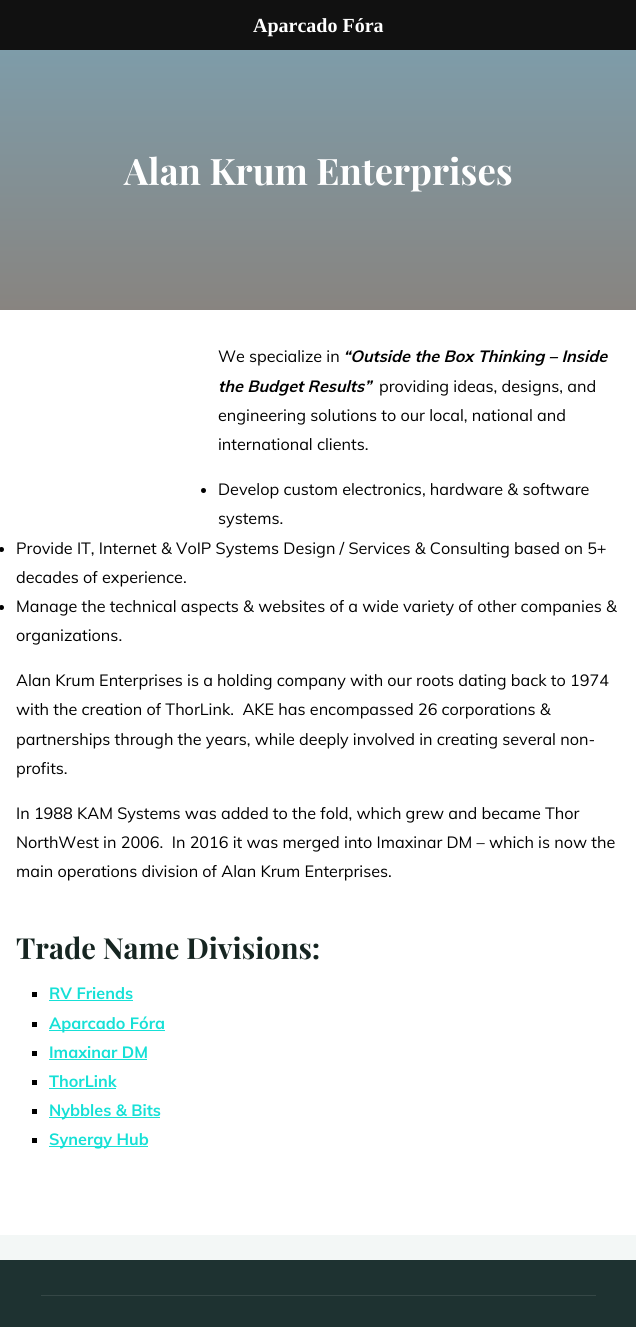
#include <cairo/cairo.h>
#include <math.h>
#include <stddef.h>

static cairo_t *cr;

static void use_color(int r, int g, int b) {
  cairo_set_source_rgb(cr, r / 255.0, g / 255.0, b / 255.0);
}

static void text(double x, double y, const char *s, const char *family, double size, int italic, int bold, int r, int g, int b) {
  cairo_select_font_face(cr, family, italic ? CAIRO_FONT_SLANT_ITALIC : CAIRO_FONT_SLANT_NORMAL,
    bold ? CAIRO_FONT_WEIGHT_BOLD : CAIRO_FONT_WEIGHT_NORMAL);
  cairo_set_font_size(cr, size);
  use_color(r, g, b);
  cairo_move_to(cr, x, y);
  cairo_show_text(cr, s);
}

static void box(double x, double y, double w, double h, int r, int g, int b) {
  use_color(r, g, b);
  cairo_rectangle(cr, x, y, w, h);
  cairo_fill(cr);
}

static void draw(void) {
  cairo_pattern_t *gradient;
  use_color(243, 247, 246);
  cairo_paint(cr);
  box(0, 0, 636, 50, 17, 17, 17);
  gradient = cairo_pattern_create_linear(318, 50, 318, 310);
  cairo_pattern_add_color_stop_rgba(gradient, 0, 0.494, 0.612, 0.663, 1);
  cairo_pattern_add_color_stop_rgba(gradient, 1, 0.533, 0.518, 0.502, 1);
  cairo_set_source(cr, gradient);
  cairo_pattern_destroy(gradient);
  cairo_rectangle(cr, 0, 50, 636, 260);
  cairo_fill(cr);
  box(0, 310, 636, 925, 255, 255, 255);
  use_color(0, 0, 0);
  cairo_arc(cr, 203.5, 490.5, 2.5, 0, 2 * M_PI);
  cairo_fill(cr);
  cairo_arc(cr, 1.5, 549.5, 2.5, 0, 2 * M_PI);
  cairo_fill(cr);
  cairo_arc(cr, 1.5, 607.5, 2.5, 0, 2 * M_PI);
  cairo_fill(cr);
  box(32, 992, 5, 5, 0, 0, 0);
  box(49, 1000, 84, 1, 22, 224, 214);
  box(32, 1022, 5, 5, 0, 0, 0);
  box(49, 1030, 116, 1, 22, 224, 214);
  box(32, 1051, 5, 5, 0, 0, 0);
  box(49, 1059, 98, 1, 22, 224, 214);
  box(32, 1080, 5, 5, 0, 0, 0);
  box(49, 1088, 67, 1, 22, 224, 214);
  box(32, 1109, 5, 5, 0, 0, 0);
  box(49, 1117, 111, 1, 22, 224, 214);
  box(32, 1138, 5, 5, 0, 0, 0);
  box(49, 1146, 99, 1, 22, 224, 214);
  box(0, 1260, 636, 67, 30, 50, 49);
  box(41, 1295, 555, 1, 53, 71, 70);
  text(253, 32, "Aparcado Fóra", "Liberation Serif", 20, 0, 1, 255, 255, 255);
  text(124, 185, "Alan Krum Enterprises", "Playfair Display", 36.5, 0, 1, 255, 255, 255);
  text(218, 362, "We specialize in", "Muli", 16.2, 0, 0, 0, 0, 0);
  text(343, 362, "“Outside the Box Thinking – Inside", "Muli", 16.2, 1, 1, 0, 0, 0);
  text(218, 392, "the Budget Results”", "Muli", 16.2, 1, 1, 0, 0, 0);
  text(379, 392, "providing ideas, designs, and", "Muli", 16.2, 0, 0, 0, 0, 0);
  text(218, 421, "engineering solutions to our local, national and", "Muli", 16.2, 0, 0, 0, 0, 0);
  text(218, 450, "international clients.", "Muli", 16.2, 0, 0, 0, 0, 0);
  text(218, 495, "Develop custom electronics, hardware & software", "Muli", 16.2, 0, 0, 0, 0, 0);
  text(218, 524, "systems.", "Muli", 16.2, 0, 0, 0, 0, 0);
  text(16, 554, "Provide IT, Internet & VoIP Systems Design / Services & Consulting based on 5+", "Muli", 16.2, 0, 0, 0, 0, 0);
  text(16, 583, "decades of experience.", "Muli", 16.2, 0, 0, 0, 0, 0);
  text(16, 612, "Manage the technical aspects & websites of a wide variety of other companies &", "Muli", 16.2, 0, 0, 0, 0, 0);
  text(16, 641, "organizations.", "Muli", 16.2, 0, 0, 0, 0, 0);
  text(16, 686, "Alan Krum Enterprises is a holding company with our roots dating back to 1974", "Muli", 16.2, 0, 0, 0, 0, 0);
  text(16, 715, "with the creation of ThorLink.  AKE has encompassed 26 corporations &", "Muli", 16.2, 0, 0, 0, 0, 0);
  text(16, 745, "partnerships through the years, while deeply involved in creating several non-", "Muli", 16.2, 0, 0, 0, 0, 0);
  text(16, 774, "profits.", "Muli", 16.2, 0, 0, 0, 0, 0);
  text(16, 819, "In 1988 KAM Systems was added to the fold, which grew and became Thor", "Muli", 16.2, 0, 0, 0, 0, 0);
  text(16, 848, "NorthWest in 2006.  In 2016 it was merged into Imaxinar DM – which is now the", "Muli", 16.2, 0, 0, 0, 0, 0);
  text(16, 877, "main operations division of Alan Krum Enterprises.", "Muli", 16.2, 0, 0, 0, 0, 0);
  text(16, 959, "Trade Name Divisions:", "Playfair Display", 29, 0, 1, 22, 37, 33);
  text(49, 999, "RV Friends", "Muli", 16.2, 0, 1, 22, 224, 214);
  text(49, 1029, "Aparcado Fóra", "Muli", 16.2, 0, 1, 22, 224, 214);
  text(49, 1058, "Imaxinar DM", "Muli", 16.2, 0, 1, 22, 224, 214);
  text(49, 1087, "ThorLink", "Muli", 16.2, 0, 1, 22, 224, 214);
  text(49, 1116, "Nybbles & Bits", "Muli", 16.2, 0, 1, 22, 224, 214);
  text(49, 1145, "Synergy Hub", "Muli", 16.2, 0, 1, 22, 224, 214);
}

int main(void) {
  cairo_surface_t *surface = cairo_image_surface_create(CAIRO_FORMAT_RGB24, 636, 1327);
  cr = cairo_create(surface);
  cairo_font_options_t *options = cairo_font_options_create();
  cairo_font_options_set_hint_metrics(options, CAIRO_HINT_METRICS_OFF);
  cairo_font_options_set_hint_style(options, CAIRO_HINT_STYLE_NONE);
  cairo_set_font_options(cr, options);
  cairo_set_miter_limit(cr, 4);
  draw();
  cairo_surface_write_to_png(surface, "out.png");
  cairo_font_options_destroy(options);
  cairo_destroy(cr);
  cairo_surface_destroy(surface);
  return 0;
}
